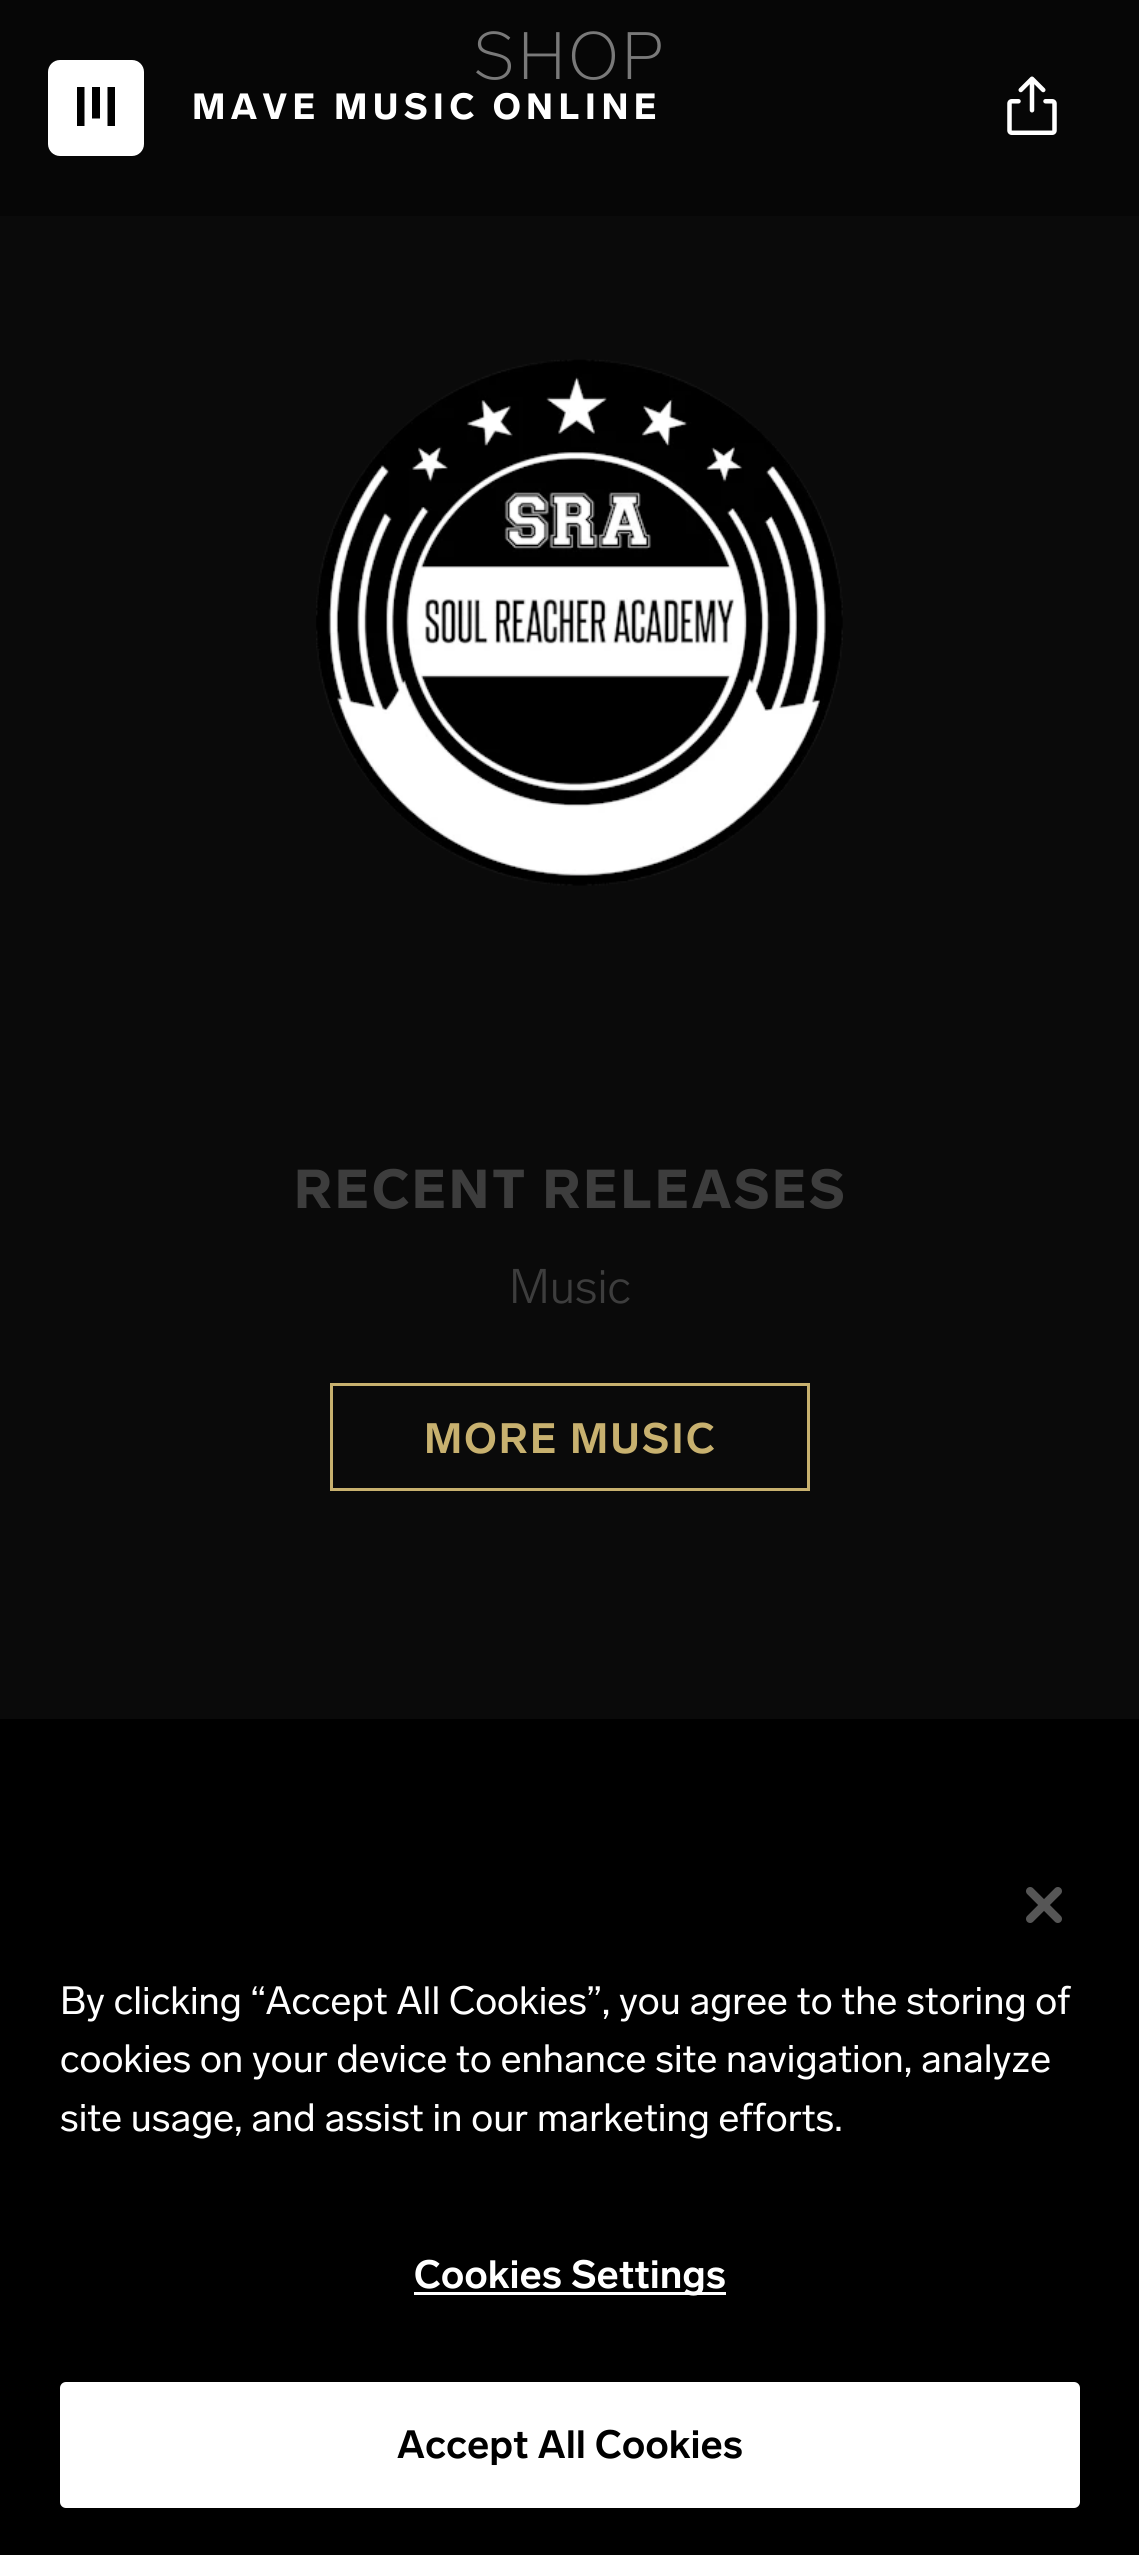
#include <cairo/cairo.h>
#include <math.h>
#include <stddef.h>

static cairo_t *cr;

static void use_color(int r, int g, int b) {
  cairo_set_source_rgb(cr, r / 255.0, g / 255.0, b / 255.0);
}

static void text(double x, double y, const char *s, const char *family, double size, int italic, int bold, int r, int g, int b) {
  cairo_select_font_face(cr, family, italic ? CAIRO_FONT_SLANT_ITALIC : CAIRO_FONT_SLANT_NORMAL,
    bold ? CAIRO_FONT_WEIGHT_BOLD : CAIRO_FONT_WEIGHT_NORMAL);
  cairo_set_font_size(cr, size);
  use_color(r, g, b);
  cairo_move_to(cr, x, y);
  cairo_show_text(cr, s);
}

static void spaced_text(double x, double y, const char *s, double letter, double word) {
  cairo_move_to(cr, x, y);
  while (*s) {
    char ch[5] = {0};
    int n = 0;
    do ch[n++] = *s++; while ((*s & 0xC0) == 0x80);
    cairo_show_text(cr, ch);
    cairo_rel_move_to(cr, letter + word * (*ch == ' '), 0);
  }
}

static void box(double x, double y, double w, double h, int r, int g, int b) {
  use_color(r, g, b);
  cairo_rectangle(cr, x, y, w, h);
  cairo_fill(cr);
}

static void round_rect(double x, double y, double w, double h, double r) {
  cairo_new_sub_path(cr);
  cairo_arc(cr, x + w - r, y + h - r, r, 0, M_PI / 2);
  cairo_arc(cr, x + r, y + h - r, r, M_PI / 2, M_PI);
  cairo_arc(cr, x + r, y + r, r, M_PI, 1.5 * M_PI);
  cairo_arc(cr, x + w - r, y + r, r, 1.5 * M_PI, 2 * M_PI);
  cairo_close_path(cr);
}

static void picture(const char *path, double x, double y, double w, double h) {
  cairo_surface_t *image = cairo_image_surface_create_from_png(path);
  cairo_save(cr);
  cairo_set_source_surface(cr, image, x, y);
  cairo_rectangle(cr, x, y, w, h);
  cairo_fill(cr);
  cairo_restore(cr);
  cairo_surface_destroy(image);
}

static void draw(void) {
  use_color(10, 10, 10);
  cairo_paint(cr);
  box(0, 0, 1139, 216, 6, 6, 6);
  picture("img_01.png", 316, 359, 527, 527);
  cairo_rectangle(cr, 331.5, 1384.5, 477, 105);
  use_color(200, 177, 111);
  cairo_set_line_width(cr, 3);
  cairo_stroke(cr);
  use_color(255, 255, 255);
  round_rect(48, 60, 96, 96, 12);
  cairo_fill(cr);
  use_color(0, 0, 0);
  cairo_new_path(cr);
  cairo_move_to(cr, 84.5, 87);
  cairo_line_to(cr, 77, 87);
  cairo_line_to(cr, 77, 126);
  cairo_line_to(cr, 84.5, 126);
  cairo_close_path(cr);
  cairo_move_to(cr, 100, 87);
  cairo_line_to(cr, 92, 87);
  cairo_line_to(cr, 92, 118.5);
  cairo_line_to(cr, 100, 118.5);
  cairo_close_path(cr);
  cairo_move_to(cr, 115, 87);
  cairo_line_to(cr, 107.5, 87);
  cairo_line_to(cr, 107.5, 126);
  cairo_line_to(cr, 115, 126);
  cairo_close_path(cr);
  cairo_fill(cr);
  picture("img_02.png", 1007, 76, 50, 59);
  box(0, 1719, 1139, 836, 0, 0, 0);
  picture("img_03.png", 1026, 1887, 36, 36);
  box(414, 2292, 312, 3, 255, 255, 255);
  round_rect(61.5, 2383.5, 1017, 123, 4.5);
  cairo_fill_preserve(cr);
  cairo_stroke(cr);
  cairo_select_font_face(cr, "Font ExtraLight", CAIRO_FONT_SLANT_NORMAL, CAIRO_FONT_WEIGHT_NORMAL);
  cairo_set_font_size(cr, 66);
  use_color(121, 121, 121);
  spaced_text(474, 79, "SHOP", 3.5, 0);
  cairo_select_font_face(cr, "Font Black", CAIRO_FONT_SLANT_NORMAL, CAIRO_FONT_WEIGHT_NORMAL);
  cairo_set_font_size(cr, 54);
  use_color(61, 61, 61);
  spaced_text(294, 1208, "RECENT RELEASES", 2.75, 0);
  text(509, 1303, "Music", "Font Light", 48, 0, 0, 61, 61, 61);
  cairo_select_font_face(cr, "Font", CAIRO_FONT_SLANT_NORMAL, CAIRO_FONT_WEIGHT_BOLD);
  cairo_set_font_size(cr, 42);
  use_color(200, 177, 111);
  spaced_text(424, 1453, "MORE MUSIC", 2.1, 0);
  cairo_select_font_face(cr, "Font Black", CAIRO_FONT_SLANT_NORMAL, CAIRO_FONT_WEIGHT_NORMAL);
  cairo_set_font_size(cr, 36);
  use_color(255, 255, 255);
  spaced_text(192, 119, "MAVE MUSIC ONLINE", 5.4, 0);
  text(60, 2014, "By clicking “Accept All Cookies”, you agree to the storing of", "Font", 39, 0, 0, 255, 255, 255);
  text(60, 2072, "cookies on your device to enhance site navigation, analyze", "Font", 39, 0, 0, 255, 255, 255);
  text(60, 2131, "site usage, and assist in our marketing efforts.", "Font", 39, 0, 0, 255, 255, 255);
  cairo_select_font_face(cr, "Font", CAIRO_FONT_SLANT_NORMAL, CAIRO_FONT_WEIGHT_BOLD);
  spaced_text(414, 2288, "Cookies Settings", 0.4, 0);
  use_color(0, 0, 0);
  spaced_text(397, 2458, "Accept All Cookies", 0.4, 0);
}

int main(void) {
  cairo_surface_t *surface = cairo_image_surface_create(CAIRO_FORMAT_RGB24, 1139, 2555);
  cr = cairo_create(surface);
  cairo_font_options_t *options = cairo_font_options_create();
  cairo_font_options_set_hint_metrics(options, CAIRO_HINT_METRICS_OFF);
  cairo_font_options_set_hint_style(options, CAIRO_HINT_STYLE_NONE);
  cairo_set_font_options(cr, options);
  cairo_set_miter_limit(cr, 4);
  draw();
  cairo_surface_write_to_png(surface, "out.png");
  cairo_font_options_destroy(options);
  cairo_destroy(cr);
  cairo_surface_destroy(surface);
  return 0;
}
